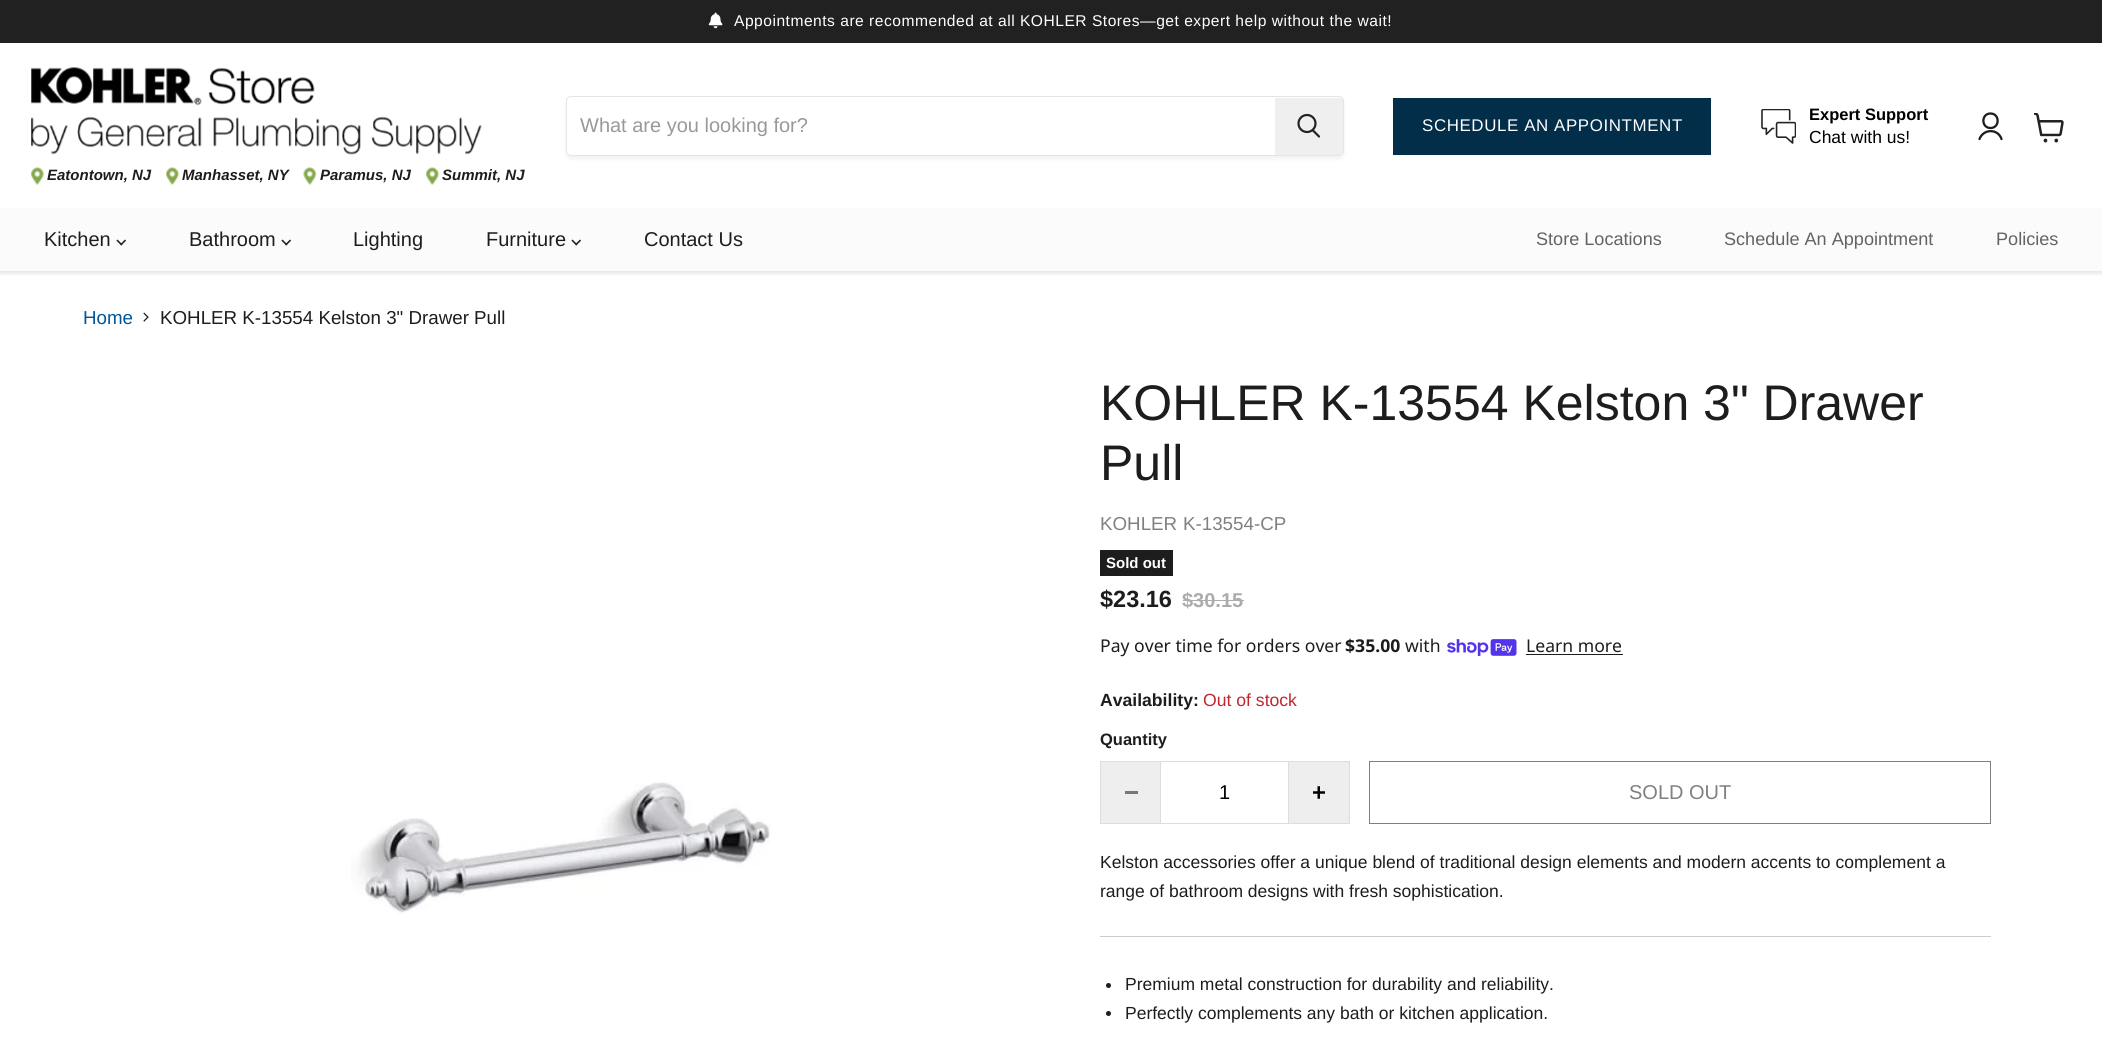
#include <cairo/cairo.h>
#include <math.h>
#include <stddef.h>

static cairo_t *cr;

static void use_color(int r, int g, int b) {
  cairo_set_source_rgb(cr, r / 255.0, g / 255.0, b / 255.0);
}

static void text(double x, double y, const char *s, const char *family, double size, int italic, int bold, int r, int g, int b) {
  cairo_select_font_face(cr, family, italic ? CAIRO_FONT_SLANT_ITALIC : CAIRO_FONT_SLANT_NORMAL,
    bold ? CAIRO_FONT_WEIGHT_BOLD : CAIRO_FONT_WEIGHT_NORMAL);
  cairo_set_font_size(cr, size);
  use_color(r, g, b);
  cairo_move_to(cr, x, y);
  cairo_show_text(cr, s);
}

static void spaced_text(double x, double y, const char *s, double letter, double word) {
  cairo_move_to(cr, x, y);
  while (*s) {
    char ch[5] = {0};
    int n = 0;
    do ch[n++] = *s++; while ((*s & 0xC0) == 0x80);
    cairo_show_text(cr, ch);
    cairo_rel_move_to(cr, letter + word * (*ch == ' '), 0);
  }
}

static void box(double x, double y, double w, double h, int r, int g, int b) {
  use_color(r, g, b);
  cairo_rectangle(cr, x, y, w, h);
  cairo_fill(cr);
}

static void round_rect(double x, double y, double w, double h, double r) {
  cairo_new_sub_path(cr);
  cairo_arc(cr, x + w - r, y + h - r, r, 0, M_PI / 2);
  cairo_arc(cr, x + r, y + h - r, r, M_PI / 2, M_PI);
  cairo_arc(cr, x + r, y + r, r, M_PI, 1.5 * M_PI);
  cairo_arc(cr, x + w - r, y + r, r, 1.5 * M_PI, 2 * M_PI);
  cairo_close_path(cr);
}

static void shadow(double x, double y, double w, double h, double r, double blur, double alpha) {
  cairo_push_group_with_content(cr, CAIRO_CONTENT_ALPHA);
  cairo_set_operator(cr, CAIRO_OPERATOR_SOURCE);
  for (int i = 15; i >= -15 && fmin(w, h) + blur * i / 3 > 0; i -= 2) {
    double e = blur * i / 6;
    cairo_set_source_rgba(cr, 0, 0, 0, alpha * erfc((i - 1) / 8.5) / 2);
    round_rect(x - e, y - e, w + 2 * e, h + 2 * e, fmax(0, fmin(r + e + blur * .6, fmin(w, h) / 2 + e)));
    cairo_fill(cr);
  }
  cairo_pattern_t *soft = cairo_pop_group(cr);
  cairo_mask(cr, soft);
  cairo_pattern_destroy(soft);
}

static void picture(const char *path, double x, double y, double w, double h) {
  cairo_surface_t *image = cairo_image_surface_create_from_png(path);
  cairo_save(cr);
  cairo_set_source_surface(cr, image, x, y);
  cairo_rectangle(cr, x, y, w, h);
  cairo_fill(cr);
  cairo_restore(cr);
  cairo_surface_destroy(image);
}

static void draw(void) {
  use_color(255, 255, 255);
  cairo_paint(cr);
  cairo_save(cr);
  cairo_rectangle(cr, 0, 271, 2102, 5);
  cairo_clip(cr);
  use_color(128, 128, 128);
  shadow(0, 44, 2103, 229, 0, 2.5, 0.25);
  cairo_restore(cr);
  box(0, 0, 2102, 43, 33, 33, 33);
  picture("img_01.png", 708, 12, 15, 17);
  cairo_save(cr);
  cairo_set_fill_rule(cr, CAIRO_FILL_RULE_EVEN_ODD);
  cairo_new_path(cr);
  cairo_move_to(cr, 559, 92);
  cairo_line_to(cr, 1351, 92);
  cairo_line_to(cr, 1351, 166);
  cairo_line_to(cr, 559, 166);
  cairo_close_path(cr);
  cairo_move_to(cr, 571, 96);
  cairo_line_to(cr, 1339, 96);
  cairo_curve_to(cr, 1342, 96, 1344, 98, 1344, 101);
  cairo_line_to(cr, 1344, 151);
  cairo_curve_to(cr, 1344, 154, 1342, 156, 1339, 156);
  cairo_line_to(cr, 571, 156);
  cairo_curve_to(cr, 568, 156, 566, 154, 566, 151);
  cairo_line_to(cr, 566, 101);
  cairo_curve_to(cr, 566, 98, 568, 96, 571, 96);
  cairo_close_path(cr);
  cairo_clip(cr);
  use_color(128, 128, 128);
  shadow(566, 99, 778, 60, 5, 2, 0.11);
  cairo_restore(cr);
  round_rect(566.5, 96.5, 777, 59, 4.5);
  cairo_set_source_rgba(cr, 0.502, 0.502, 0.502, 0.2);
  cairo_set_line_width(cr, 1);
  cairo_stroke(cr);
  box(1275, 98, 68, 57, 239, 239, 239);
  cairo_new_path(cr);
  cairo_move_to(cr, 1319, 136.5);
  cairo_line_to(cr, 1313, 130.5);
  use_color(34, 34, 34);
  cairo_set_line_width(cr, 2.2);
  cairo_set_line_cap(cr, CAIRO_LINE_CAP_ROUND);
  cairo_stroke(cr);
  cairo_arc(cr, 1307, 123.5, 8.5, 0, 2 * M_PI);
  cairo_set_line_cap(cr, CAIRO_LINE_CAP_BUTT);
  cairo_stroke(cr);
  box(1393, 98, 318, 57, 2, 46, 73);
  picture("img_02.png", 1761, 109, 35, 35);
  picture("img_03.png", 31, 67, 451, 88);
  picture("img_04.png", 31, 167, 14, 18);
  picture("img_05.png", 166, 167, 14, 18);
  picture("img_06.png", 303, 167, 14, 18);
  picture("img_05.png", 426, 167, 14, 18);
  cairo_new_path(cr);
  cairo_move_to(cr, 1990.5, 128);
  cairo_curve_to(cr, 2000, 128, 2000, 113.5, 1990.5, 113.5);
  cairo_curve_to(cr, 1981, 113.5, 1981, 128, 1990.5, 128);
  cairo_close_path(cr);
  cairo_move_to(cr, 2001.5, 139);
  cairo_curve_to(cr, 1998, 128.5, 1983.5, 128.5, 1979.5, 139);
  use_color(29, 29, 29);
  cairo_set_line_width(cr, 2.3);
  cairo_set_line_cap(cr, CAIRO_LINE_CAP_ROUND);
  cairo_set_line_join(cr, CAIRO_LINE_JOIN_ROUND);
  cairo_stroke(cr);
  picture("img_07.png", 2034, 113, 30, 30);
  box(0, 208, 2102, 63, 251, 251, 251);
  picture("img_08.png", 116, 239, 10, 7);
  picture("img_08.png", 281, 239, 10, 7);
  picture("img_08.png", 571, 239, 10, 7);
  picture("img_09.png", 143, 312, 6, 10);
  picture("img_10.png", 351, 781, 420, 134);
  box(1100, 550, 73, 26, 29, 29, 29);
  box(1183, 600, 61, 1, 172, 172, 172);
  picture("img_11.png", 1447, 639, 70, 17);
  box(1526, 654, 97, 1, 29, 29, 29);
  box(1101, 762, 59, 61, 238, 238, 238);
  box(1100, 761, 60, 1, 221, 221, 221);
  box(1100, 823, 60, 1, 221, 221, 221);
  box(1100, 761, 1, 63, 221, 221, 221);
  box(1125, 791, 13, 3, 119, 119, 119);
  cairo_rectangle(cr, 1160.5, 761.5, 128, 62);
  use_color(221, 221, 221);
  cairo_set_line_width(cr, 1);
  cairo_set_line_cap(cr, CAIRO_LINE_CAP_BUTT);
  cairo_set_line_join(cr, CAIRO_LINE_JOIN_MITER);
  cairo_stroke(cr);
  box(1289, 762, 60, 61, 238, 238, 238);
  box(1289, 761, 61, 1, 221, 221, 221);
  box(1349, 761, 1, 63, 221, 221, 221);
  box(1289, 823, 61, 1, 221, 221, 221);
  picture("img_12.png", 1313, 786, 12, 13);
  cairo_rectangle(cr, 1369.5, 761.5, 621, 62);
  use_color(128, 128, 128);
  cairo_stroke(cr);
  box(1100, 936, 891, 1, 204, 204, 204);
  use_color(29, 29, 29);
  cairo_arc(cr, 1108.5, 985.5, 2.5, 0, 2 * M_PI);
  cairo_fill(cr);
  cairo_arc(cr, 1108.5, 1013.5, 2.5, 0, 2 * M_PI);
  cairo_fill(cr);
  cairo_select_font_face(cr, "Liberation Sans", CAIRO_FONT_SLANT_NORMAL, CAIRO_FONT_WEIGHT_NORMAL);
  cairo_set_font_size(cr, 15.6);
  use_color(255, 255, 255);
  spaced_text(734, 26, "Appointments are recommended at all KOHLER Stores—get expert help without the wait!", 0.5, 0);
  text(580, 132, "What are you looking for?", "Liberation Sans", 20, 0, 0, 153, 153, 153);
  cairo_set_font_size(cr, 16.9);
  use_color(255, 255, 255);
  spaced_text(1422, 131, "SCHEDULE AN APPOINTMENT", 0.6, 0);
  text(1809, 120, "Expert Support", "Liberation Sans", 16.5, 0, 1, 0, 0, 0);
  text(1809, 143, "Chat with us!", "Liberation Sans", 17.5, 0, 0, 0, 0, 0);
  text(47, 180, "Eatontown, NJ", "Liberation Sans", 15, 1, 1, 29, 29, 29);
  text(182, 180, "Manhasset, NY", "Liberation Sans", 15, 1, 1, 29, 29, 29);
  text(320, 180, "Paramus, NJ", "Liberation Sans", 15, 1, 1, 29, 29, 29);
  text(442, 180, "Summit, NJ", "Liberation Sans", 15, 1, 1, 29, 29, 29);
  text(44, 246, "Kitchen", "Liberation Sans", 20, 0, 0, 29, 29, 29);
  text(189, 246, "Bathroom", "Liberation Sans", 20, 0, 0, 29, 29, 29);
  text(353, 246, "Lighting", "Liberation Sans", 20, 0, 0, 29, 29, 29);
  text(486, 246, "Furniture", "Liberation Sans", 20, 0, 0, 29, 29, 29);
  text(644, 246, "Contact Us", "Liberation Sans", 20, 0, 0, 29, 29, 29);
  text(1536, 245, "Store Locations", "Liberation Sans", 18.1, 0, 0, 99, 99, 99);
  text(1724, 245, "Schedule An Appointment", "Liberation Sans", 18.1, 0, 0, 99, 99, 99);
  text(1996, 245, "Policies", "Liberation Sans", 18.1, 0, 0, 99, 99, 99);
  text(83, 324, "Home", "Liberation Sans", 18.75, 0, 0, 0, 86, 150);
  text(160, 324, "KOHLER K-13554 Kelston 3\" Drawer Pull", "Liberation Sans", 18.75, 0, 0, 29, 29, 29);
  text(1100, 420, "KOHLER K-13554 Kelston 3\" Drawer", "Liberation Sans", 50, 0, 0, 29, 29, 29);
  text(1100, 480, "Pull", "Liberation Sans", 50, 0, 0, 29, 29, 29);
  text(1100, 530, "KOHLER", "Liberation Sans", 18.75, 0, 0, 128, 128, 128);
  text(1183, 530, "K-13554-CP", "Liberation Sans", 18.75, 0, 0, 128, 128, 128);
  text(1106, 568, "Sold out", "Liberation Sans", 15, 0, 1, 255, 255, 255);
  text(1100, 607, "$23.16", "Liberation Sans", 23.5, 0, 1, 29, 29, 29);
  text(1182, 607, "$30.15", "Liberation Sans", 20, 0, 1, 172, 172, 172);
  text(1100, 652, "Pay over time for orders over", "Noto Sans", 17.6, 0, 0, 29, 29, 29);
  text(1345, 652, "$35.00", "Noto Sans", 17.6, 0, 1, 29, 29, 29);
  text(1405, 652, "with", "Noto Sans", 17.6, 0, 0, 29, 29, 29);
  text(1526, 652, "Learn more", "Noto Sans", 17.6, 0, 0, 29, 29, 29);
  text(1100, 706, "Availability:", "Liberation Sans", 17.6, 0, 1, 29, 29, 29);
  text(1203, 706, "Out of stock", "Liberation Sans", 17.6, 0, 0, 191, 38, 47);
  text(1100, 745, "Quantity", "Liberation Sans", 16.5, 0, 1, 29, 29, 29);
  text(1219, 799, "1", "Liberation Sans", 20, 0, 0, 0, 0, 0);
  text(1629, 799, "SOLD OUT", "Liberation Sans", 20, 0, 0, 128, 128, 128);
  text(1100, 868, "Kelston accessories offer a unique blend of traditional design elements and modern accents to complement a", "Liberation Sans", 17.5, 0, 0, 29, 29, 29);
  text(1100, 897, "range of bathroom designs with fresh sophistication.", "Liberation Sans", 17.5, 0, 0, 29, 29, 29);
  text(1125, 990, "Premium metal construction for durability and reliability.", "Liberation Sans", 17.5, 0, 0, 29, 29, 29);
  text(1125, 1019, "Perfectly complements any bath or kitchen application.", "Liberation Sans", 17.5, 0, 0, 29, 29, 29);
}

int main(void) {
  cairo_surface_t *surface = cairo_image_surface_create(CAIRO_FORMAT_RGB24, 2102, 1055);
  cr = cairo_create(surface);
  cairo_font_options_t *options = cairo_font_options_create();
  cairo_font_options_set_hint_metrics(options, CAIRO_HINT_METRICS_OFF);
  cairo_font_options_set_hint_style(options, CAIRO_HINT_STYLE_NONE);
  cairo_set_font_options(cr, options);
  cairo_set_miter_limit(cr, 4);
  draw();
  cairo_surface_write_to_png(surface, "out.png");
  cairo_font_options_destroy(options);
  cairo_destroy(cr);
  cairo_surface_destroy(surface);
  return 0;
}
